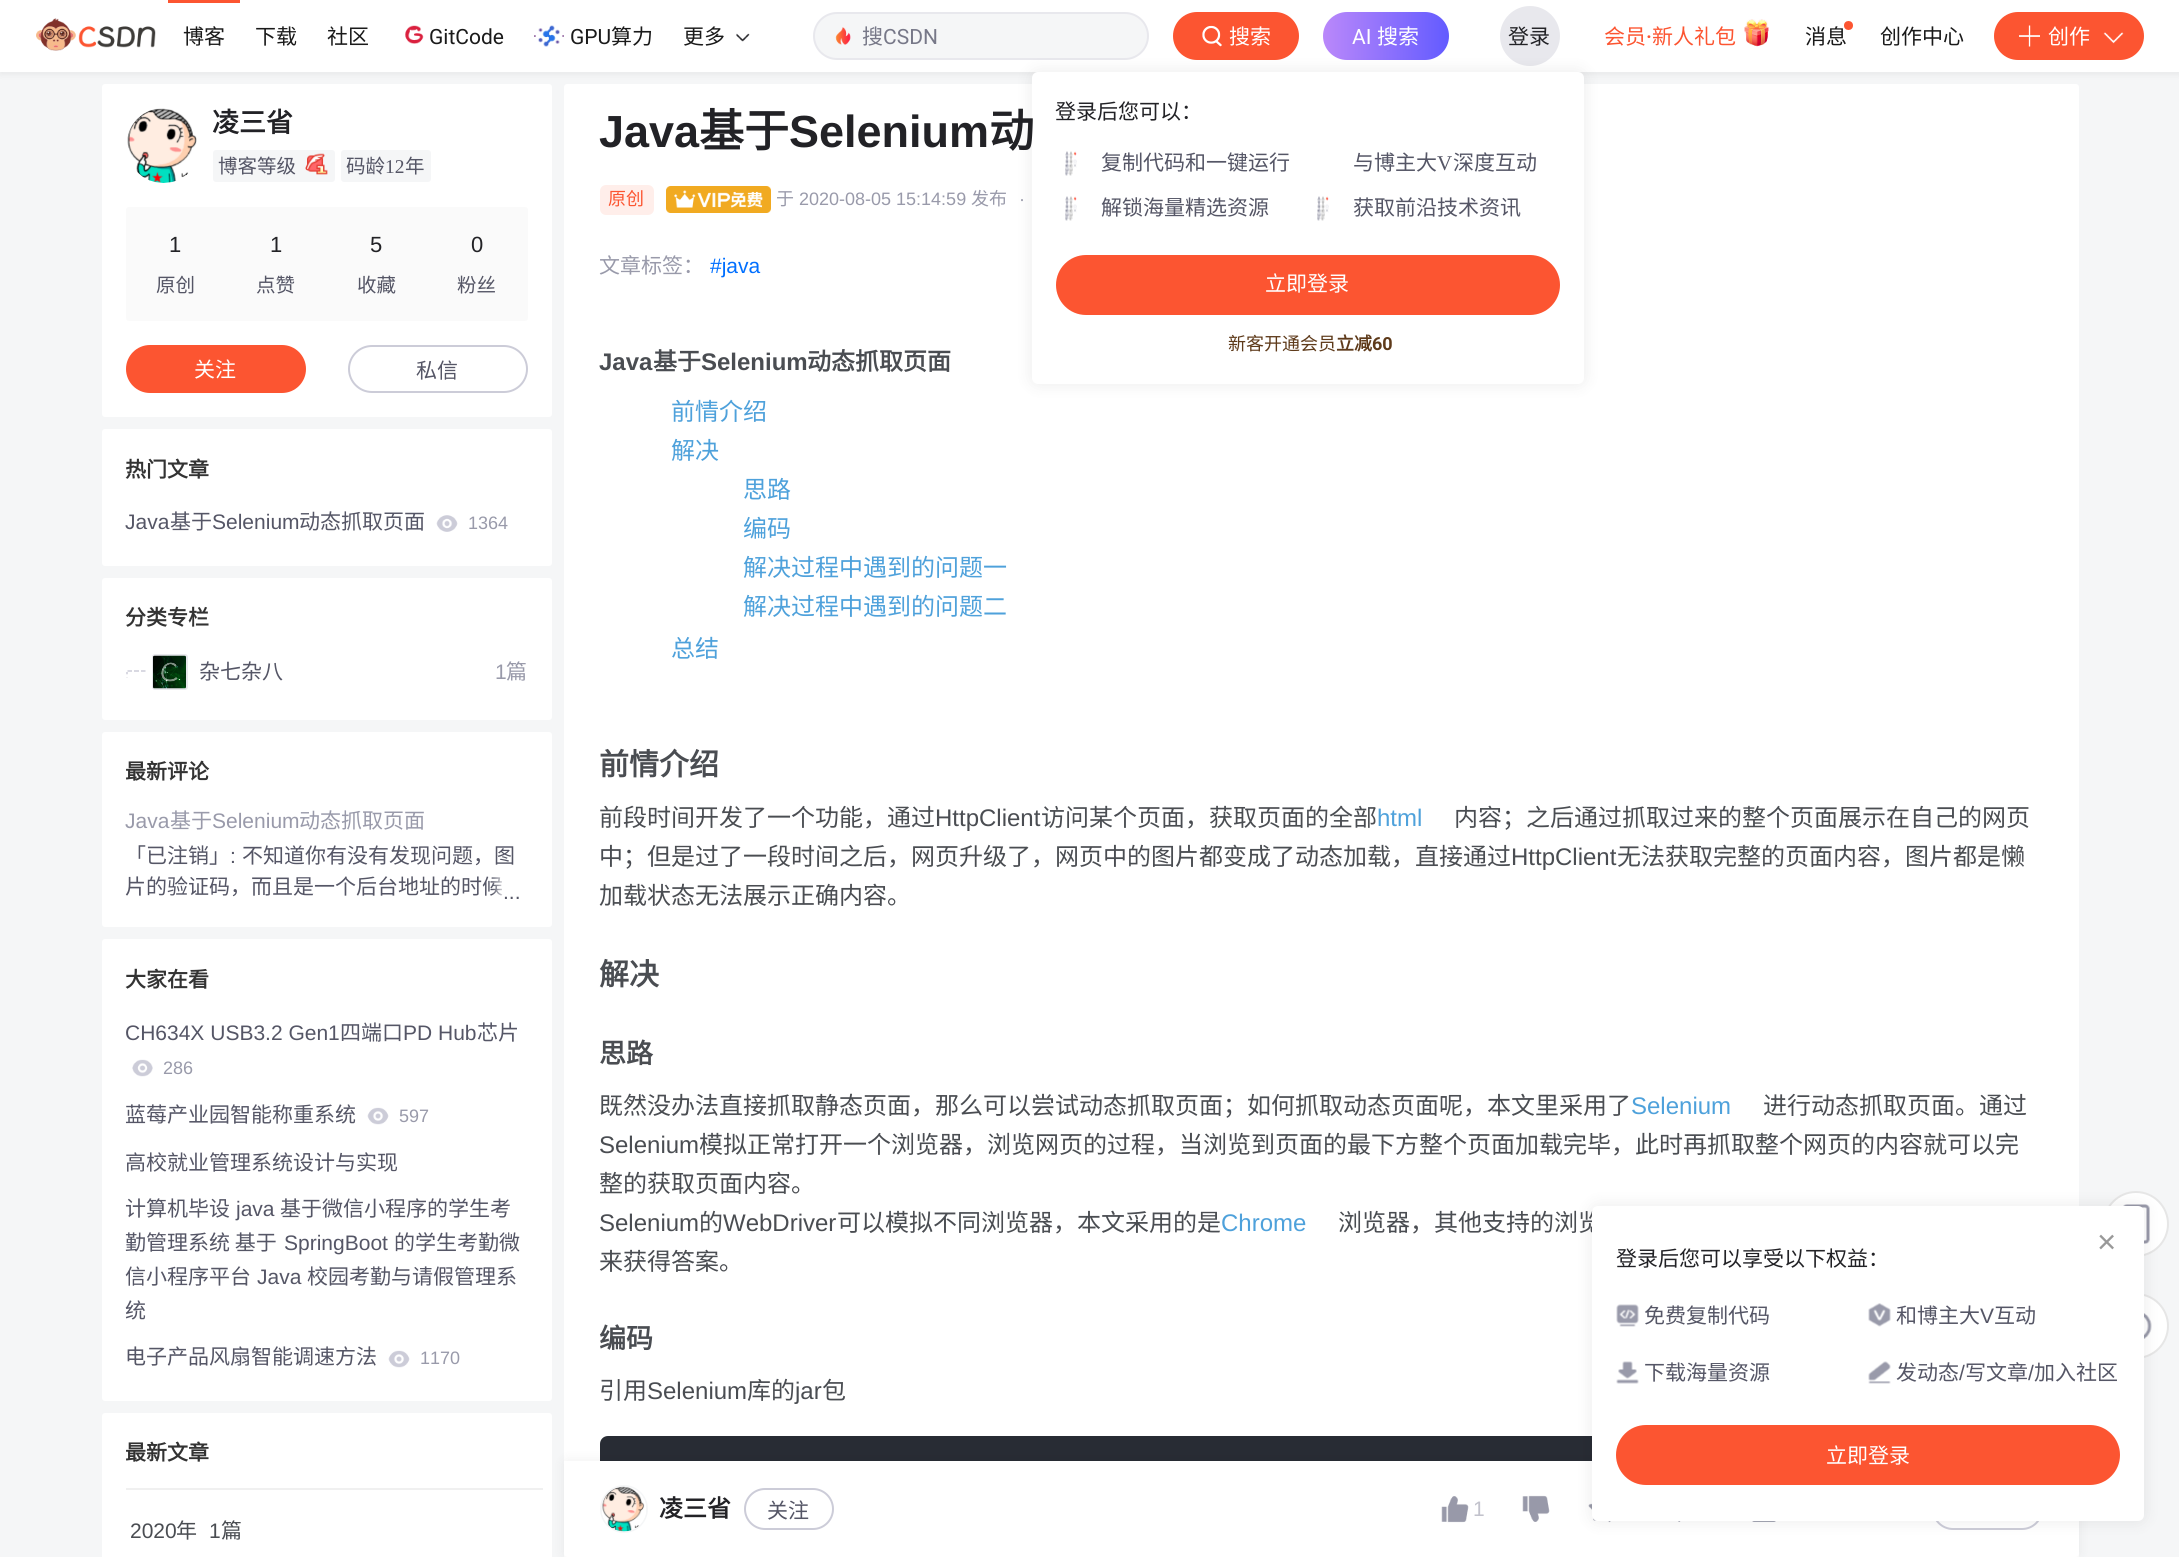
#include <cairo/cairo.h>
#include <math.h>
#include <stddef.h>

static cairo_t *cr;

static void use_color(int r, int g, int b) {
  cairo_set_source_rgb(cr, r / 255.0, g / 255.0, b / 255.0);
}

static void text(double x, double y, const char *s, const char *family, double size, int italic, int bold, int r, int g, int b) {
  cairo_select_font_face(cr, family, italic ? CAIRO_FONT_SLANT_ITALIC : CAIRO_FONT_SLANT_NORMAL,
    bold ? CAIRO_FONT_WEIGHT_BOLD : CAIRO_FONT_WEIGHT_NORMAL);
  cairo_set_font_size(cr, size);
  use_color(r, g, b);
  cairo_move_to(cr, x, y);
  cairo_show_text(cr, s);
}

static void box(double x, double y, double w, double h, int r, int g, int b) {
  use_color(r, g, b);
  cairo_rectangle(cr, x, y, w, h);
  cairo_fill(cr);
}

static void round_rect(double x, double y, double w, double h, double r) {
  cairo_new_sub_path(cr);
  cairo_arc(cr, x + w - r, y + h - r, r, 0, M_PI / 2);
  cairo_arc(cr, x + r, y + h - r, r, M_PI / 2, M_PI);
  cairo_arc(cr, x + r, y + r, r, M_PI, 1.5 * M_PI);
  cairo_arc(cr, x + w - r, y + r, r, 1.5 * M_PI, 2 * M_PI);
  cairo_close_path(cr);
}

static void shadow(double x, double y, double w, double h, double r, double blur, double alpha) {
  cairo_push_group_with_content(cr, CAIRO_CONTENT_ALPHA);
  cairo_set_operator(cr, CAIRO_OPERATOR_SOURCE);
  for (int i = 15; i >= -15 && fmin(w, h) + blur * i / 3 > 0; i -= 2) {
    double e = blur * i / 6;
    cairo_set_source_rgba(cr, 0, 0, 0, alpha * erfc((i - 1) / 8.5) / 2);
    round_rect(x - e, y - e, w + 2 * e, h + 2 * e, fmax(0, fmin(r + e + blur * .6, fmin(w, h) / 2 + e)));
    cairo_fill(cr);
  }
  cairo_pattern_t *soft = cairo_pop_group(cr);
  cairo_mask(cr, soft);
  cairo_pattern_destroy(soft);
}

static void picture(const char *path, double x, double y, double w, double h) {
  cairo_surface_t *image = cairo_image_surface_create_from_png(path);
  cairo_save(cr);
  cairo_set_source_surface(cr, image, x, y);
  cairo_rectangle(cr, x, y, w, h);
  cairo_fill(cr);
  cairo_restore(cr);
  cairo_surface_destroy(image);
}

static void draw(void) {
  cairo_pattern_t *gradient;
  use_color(245, 246, 247);
  cairo_paint(cr);
  use_color(255, 255, 255);
  round_rect(102, 84, 450, 333, 3);
  cairo_fill(cr);
  use_color(0, 0, 0);
  shadow(0, 3, 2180, 72, 0, 3, 0.05);
  box(0, 0, 2179, 72, 255, 255, 255);
  picture("img_01.png", 36, 18, 120, 33);
  box(168, 0, 72, 3, 252, 85, 49);
  picture("img_02.png", 405, 25, 19, 19);
  picture("img_03.png", 534, 25, 30, 22);
  picture("img_04.png", 736, 33, 14, 9);
  use_color(245, 246, 247);
  round_rect(814, 13, 334, 46, 23);
  cairo_fill_preserve(cr);
  use_color(232, 232, 237);
  cairo_stroke(cr);
  picture("img_05.png", 835, 27, 16, 18);
  use_color(252, 85, 49);
  round_rect(1173, 12, 126, 48, 24);
  cairo_fill(cr);
  picture("img_06.png", 1202, 25, 20, 22);
  gradient = cairo_pattern_create_linear(1323, 36, 1449, 36);
  cairo_pattern_add_color_stop_rgba(gradient, 0, 0.729, 0.533, 0.98, 1);
  cairo_pattern_add_color_stop_rgba(gradient, 1, 0.388, 0.357, 1, 1);
  cairo_set_source(cr, gradient);
  cairo_pattern_destroy(gradient);
  round_rect(1323, 12, 126, 48, 24);
  cairo_fill(cr);
  use_color(232, 232, 237);
  cairo_arc(cr, 1530, 36, 30, 0, 2 * M_PI);
  cairo_fill(cr);
  use_color(255, 255, 255);
  cairo_new_path(cr);
  cairo_move_to(cr, 567, 84);
  cairo_line_to(cr, 2076, 84);
  cairo_curve_to(cr, 2077.5, 84, 2079, 85.5, 2079, 87);
  cairo_line_to(cr, 2079, 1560);
  cairo_line_to(cr, 564, 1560);
  cairo_line_to(cr, 564, 87);
  cairo_curve_to(cr, 564, 85.5, 565.5, 84, 567, 84);
  cairo_close_path(cr);
  cairo_fill(cr);
  use_color(0, 0, 0);
  shadow(1029, 69, 558, 318, 9, 7.5, 0.06);
  use_color(255, 255, 255);
  round_rect(1032, 72, 552, 312, 6);
  cairo_fill(cr);
  picture("img_07.png", 1065, 151, 12, 25);
  picture("img_07.png", 1065, 196, 12, 25);
  picture("img_07.png", 1317, 196, 12, 25);
  use_color(252, 85, 49);
  round_rect(1056, 255, 504, 60, 30);
  cairo_fill(cr);
  picture("img_08.png", 1744, 19, 25, 28);
  round_rect(1994, 12, 150, 48, 24);
  cairo_fill(cr);
  picture("img_09.png", 2019, 25, 21, 22);
  picture("img_10.png", 2103, 32, 21, 12);
  picture("img_11.png", 127, 108, 70, 75);
  use_color(245, 246, 247);
  round_rect(213, 150, 122, 32, 3);
  cairo_fill(cr);
  picture("img_12.png", 305, 153, 23, 22);
  round_rect(341, 150, 90, 32, 3);
  cairo_fill(cr);
  use_color(250, 250, 250);
  round_rect(126, 207, 402, 114, 3);
  cairo_fill(cr);
  use_color(252, 85, 49);
  round_rect(126, 345, 180, 48, 24);
  cairo_fill(cr);
  round_rect(349, 346, 178, 46, 23);
  use_color(204, 204, 216);
  cairo_stroke(cr);
  use_color(255, 255, 255);
  round_rect(102, 429, 450, 137, 3);
  cairo_fill(cr);
  picture("img_13.png", 436, 515, 22, 17);
  round_rect(102, 578, 450, 142, 3);
  cairo_fill(cr);
  cairo_new_path(cr);
  cairo_move_to(cr, 127, 654);
  cairo_line_to(cr, 127, 690);
  use_color(204, 204, 216);
  cairo_set_line_width(cr, 1.5);
  cairo_set_dash(cr, (double[]){4.5, 3.38}, 2, 0);
  cairo_stroke(cr);
  box(126, 654, 2, 18, 255, 255, 255);
  cairo_new_path(cr);
  cairo_move_to(cr, 127.5, 671);
  cairo_line_to(cr, 132, 671);
  cairo_move_to(cr, 134, 671);
  cairo_line_to(cr, 139, 671);
  cairo_move_to(cr, 141, 671);
  cairo_line_to(cr, 145.5, 671);
  use_color(204, 204, 216);
  cairo_set_dash(cr, NULL, 0, 0);
  cairo_stroke(cr);
  round_rect(153, 655, 34, 34, 2);
  use_color(232, 232, 237);
  cairo_set_line_width(cr, 2);
  cairo_stroke(cr);
  picture("img_14.png", 153, 655, 33, 34);
  box(126, 678, 2, 18, 255, 255, 255);
  round_rect(102, 732, 450, 195, 3);
  cairo_fill(cr);
  round_rect(102, 939, 450, 462, 3);
  cairo_fill(cr);
  picture("img_15.png", 132, 1059, 21, 18);
  picture("img_16.png", 367, 1107, 22, 18);
  picture("img_16.png", 388, 1350, 22, 18);
  round_rect(102, 1413, 450, 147, 3);
  cairo_fill(cr);
  box(126, 1488, 417, 2, 240, 240, 240);
  use_color(255, 238, 234);
  round_rect(600, 185, 54, 30, 6);
  cairo_fill(cr);
  picture("img_17.png", 666, 186, 105, 27);
  use_color(40, 44, 52);
  cairo_new_path(cr);
  cairo_move_to(cr, 608, 1436);
  cairo_line_to(cr, 2035, 1436);
  cairo_curve_to(cr, 2039.5, 1436, 2043, 1439.5, 2043, 1444);
  cairo_line_to(cr, 2043, 1482);
  cairo_line_to(cr, 600, 1482);
  cairo_line_to(cr, 600, 1444);
  cairo_curve_to(cr, 600, 1439.5, 603.5, 1436, 608, 1436);
  cairo_close_path(cr);
  cairo_fill(cr);
  use_color(0, 0, 0);
  shadow(564, 1460, 1515, 96, 3, 6, 0.06);
  use_color(255, 255, 255);
  cairo_new_path(cr);
  cairo_move_to(cr, 564, 1461);
  cairo_line_to(cr, 2079, 1461);
  cairo_line_to(cr, 2079, 1554);
  cairo_curve_to(cr, 2079, 1555.5, 2077.5, 1557, 2076, 1557);
  cairo_line_to(cr, 567, 1557);
  cairo_curve_to(cr, 565.5, 1557, 564, 1555.5, 564, 1554);
  cairo_close_path(cr);
  cairo_fill(cr);
  cairo_arc(cr, 624, 1509, 23, 0, 2 * M_PI);
  use_color(245, 246, 247);
  cairo_stroke(cr);
  picture("img_18.png", 602, 1486, 44, 46);
  round_rect(745, 1489, 88, 40, 20);
  use_color(204, 204, 216);
  cairo_stroke(cr);
  picture("img_19.png", 1441, 1496, 28, 27);
  picture("img_20.png", 1522, 1495, 28, 27);
  picture("img_21.png", 1588, 1503, 23, 20);
  picture("img_22.png", 1678, 1521, 3, 1);
  picture("img_23.png", 1752, 1521, 24, 1);
  round_rect(1933, 1489, 109, 40, 20);
  cairo_stroke(cr);
  use_color(255, 255, 255);
  cairo_arc(cr, 2136, 1224, 33, 0, 2 * M_PI);
  cairo_fill(cr);
  cairo_arc(cr, 2136, 1224, 32, 0, 2 * M_PI);
  cairo_set_source_rgba(cr, 0, 0, 0, 0.1);
  cairo_stroke(cr);
  picture("img_24.png", 2123, 1204, 27, 40);
  use_color(255, 255, 255);
  cairo_arc(cr, 2136, 1326, 33, 0, 2 * M_PI);
  cairo_fill(cr);
  cairo_arc(cr, 2136, 1326, 32, 0, 2 * M_PI);
  cairo_set_source_rgba(cr, 0, 0, 0, 0.1);
  cairo_stroke(cr);
  picture("img_25.png", 2144, 1313, 8, 26);
  use_color(0, 0, 0);
  shadow(1589, 1203, 558, 321, 9, 7.5, 0.06);
  text(183, 44, "博客", "Noto Sans CJK SC", 21, 0, 0, 26, 26, 26);
  text(255, 44, "下载", "Noto Sans CJK SC", 21, 0, 0, 26, 26, 26);
  text(327, 44, "社区", "Noto Sans CJK SC", 21, 0, 0, 26, 26, 26);
  text(429, 44, "GitCode", "Roboto", 21, 0, 0, 26, 26, 26);
  text(570, 44, "GPU", "Roboto", 21, 0, 0, 26, 26, 26);
  text(611, 44, "算力", "Noto Sans CJK SC", 21, 0, 0, 26, 26, 26);
  text(683, 44, "更多", "Noto Sans CJK SC", 21, 0, 0, 26, 26, 26);
  text(862, 44, "搜", "Noto Sans CJK SC", 21, 0, 0, 119, 120, 136);
  text(883, 44, "CSDN", "Roboto", 21, 0, 0, 119, 120, 136);
  text(1229, 44, "搜索", "Noto Sans CJK SC", 21, 0, 0, 255, 255, 255);
  text(1352, 44, "AI", "Roboto", 21, 0, 0, 255, 255, 255);
  text(1377, 44, "搜索", "Noto Sans CJK SC", 21, 0, 0, 255, 255, 255);
  text(1508, 44, "登录", "Noto Sans CJK SC", 21, 0, 0, 34, 34, 38);
  text(1055, 119, "登录后您可以：", "Noto Sans CJK SC", 21, 0, 0, 34, 34, 38);
  text(1101, 170, "复制代码和一键运行", "Noto Sans CJK SC", 21, 0, 0, 85, 86, 102);
  text(1353, 170, "与博主大", "Noto Sans CJK SC", 21, 0, 0, 85, 86, 102);
  text(1437, 170, "V", "Liberation Serif", 21, 0, 0, 85, 86, 102);
  text(1453, 170, "深度互动", "Noto Sans CJK SC", 21, 0, 0, 85, 86, 102);
  text(1101, 215, "解锁海量精选资源", "Noto Sans CJK SC", 21, 0, 0, 85, 86, 102);
  text(1353, 215, "获取前沿技术资讯", "Noto Sans CJK SC", 21, 0, 0, 85, 86, 102);
  text(1265, 291, "立即登录", "Noto Sans CJK SC", 21, 0, 0, 255, 255, 255);
  text(1228, 350, "新客开通会员", "Noto Sans CJK SC", 18, 0, 0, 94, 58, 26);
  text(1336, 350, "立减", "Noto Sans CJK SC", 18, 0, 1, 94, 58, 26);
  text(1372, 350, "60", "Roboto", 18, 0, 1, 94, 58, 26);
  text(1604, 44, "会员", "Noto Sans CJK SC", 21, 0, 0, 252, 85, 49);
  text(1646, 44, "·", "Roboto Medium", 21, 0, 0, 252, 85, 49);
  text(1652, 44, "新人礼包", "Noto Sans CJK SC", 21, 0, 0, 252, 85, 49);
  text(1805, 44, "消息", "Noto Sans CJK SC", 21, 0, 0, 26, 26, 26);
  use_color(252, 85, 49);
  cairo_new_path(cr);
  cairo_arc(cr, 1848.5, 25.5, 4.5, 0, 2 * M_PI);
  cairo_fill(cr);
  text(1880, 44, "创作中心", "Noto Sans CJK SC", 21, 0, 0, 26, 26, 26);
  text(2048, 44, "创作", "Noto Sans CJK SC", 21, 0, 0, 255, 255, 255);
  text(212, 132, "凌三省", "Noto Sans CJK SC", 27, 0, 1, 34, 34, 38);
  text(218, 173, "博客等级", "Noto Sans CJK SC", 19.5, 0, 0, 85, 86, 102);
  text(346, 173, "码龄", "Noto Sans CJK SC", 19.5, 0, 0, 85, 86, 102);
  text(385, 173, "12", "Liberation Serif", 19.5, 0, 0, 85, 86, 102);
  text(405, 173, "年", "Noto Sans CJK SC", 19.5, 0, 0, 85, 86, 102);
  text(169, 252, "1", "Liberation Sans", 22, 0, 0, 34, 34, 38);
  text(156, 292, "原创", "Noto Sans CJK SC", 19.5, 0, 0, 85, 86, 102);
  text(270, 252, "1", "Liberation Sans", 22, 0, 0, 34, 34, 38);
  text(256, 292, "点赞", "Noto Sans CJK SC", 19.5, 0, 0, 85, 86, 102);
  text(370, 252, "5", "Liberation Sans", 22, 0, 0, 34, 34, 38);
  text(357, 292, "收藏", "Noto Sans CJK SC", 19.5, 0, 0, 85, 86, 102);
  text(471, 252, "0", "Liberation Sans", 22, 0, 0, 34, 34, 38);
  text(457, 292, "粉丝", "Noto Sans CJK SC", 19.5, 0, 0, 85, 86, 102);
  text(194, 377, "关注", "Noto Sans CJK SC", 21, 0, 0, 255, 255, 255);
  text(416, 378, "私信", "Noto Sans CJK SC", 21, 0, 0, 85, 86, 102);
  text(125, 477, "热门文章", "Noto Sans CJK SC", 21, 0, 1, 51, 51, 51);
  text(125, 529, "Java", "Liberation Sans", 21, 0, 0, 85, 86, 102);
  text(170, 529, "基于", "Noto Sans CJK SC", 21, 0, 0, 85, 86, 102);
  text(212, 529, "Selenium", "Liberation Sans", 21, 0, 0, 85, 86, 102);
  text(299, 529, "动态抓取页面", "Noto Sans CJK SC", 21, 0, 0, 85, 86, 102);
  text(468, 529, "1364", "Liberation Sans", 18, 0, 0, 153, 154, 170);
  text(125, 625, "分类专栏", "Noto Sans CJK SC", 21, 0, 1, 51, 51, 51);
  text(199, 679, "杂七杂八", "Noto Sans CJK SC", 21, 0, 0, 85, 86, 102);
  text(495, 679, "1", "Liberation Sans", 21, 0, 0, 153, 154, 170);
  text(506, 679, "篇", "Noto Sans CJK SC", 21, 0, 0, 153, 154, 170);
  text(125, 779, "最新评论", "Noto Sans CJK SC", 21, 0, 1, 51, 51, 51);
  text(125, 828, "Java", "Liberation Sans", 21, 0, 0, 153, 154, 170);
  text(170, 828, "基于", "Noto Sans CJK SC", 21, 0, 0, 153, 154, 170);
  text(212, 828, "Selenium", "Liberation Sans", 21, 0, 0, 153, 154, 170);
  text(299, 828, "动态抓取页面", "Noto Sans CJK SC", 21, 0, 0, 153, 154, 170);
  text(125, 863, "「已注销」", "Noto Sans CJK SC", 21, 0, 0, 85, 86, 102);
  text(230, 863, ":", "Liberation Sans", 21, 0, 0, 85, 86, 102);
  text(242, 863, "不知道你有没有发现问题，图", "Noto Sans CJK SC", 21, 0, 0, 85, 86, 102);
  text(125, 894, "片的验证码，而且是一个后台地址的时候", "Noto Sans CJK SC", 21, 0, 0, 85, 86, 102);
  gradient = cairo_pattern_create_linear(492, 890, 528, 890);
  cairo_pattern_add_color_stop_rgba(gradient, 0, 1, 1, 1, 0);
  cairo_pattern_add_color_stop_rgba(gradient, 0.4, 1, 1, 1, 1);
  cairo_set_source(cr, gradient);
  cairo_pattern_destroy(gradient);
  cairo_rectangle(cr, 492, 877, 11, 19);
  cairo_fill(cr);
  text(503, 899, "...", "Liberation Sans", 21, 0, 0, 85, 86, 102);
  text(125, 987, "大家在看", "Noto Sans CJK SC", 21, 0, 1, 51, 51, 51);
  text(125, 1040, "CH634X USB3.2 Gen1", "Liberation Sans", 21, 0, 0, 85, 86, 102);
  text(340, 1040, "四端口", "Noto Sans CJK SC", 21, 0, 0, 85, 86, 102);
  text(403, 1040, "PD Hub", "Liberation Sans", 21, 0, 0, 85, 86, 102);
  text(477, 1040, "芯片", "Noto Sans CJK SC", 21, 0, 0, 85, 86, 102);
  text(163, 1074, "286", "Liberation Sans", 18, 0, 0, 153, 154, 170);
  text(125, 1122, "蓝莓产业园智能称重系统", "Noto Sans CJK SC", 21, 0, 0, 85, 86, 102);
  text(399, 1122, "597", "Liberation Sans", 18, 0, 0, 153, 154, 170);
  text(125, 1170, "高校就业管理系统设计与实现", "Noto Sans CJK SC", 21, 0, 0, 85, 86, 102);
  text(125, 1216, "计算机毕设", "Noto Sans CJK SC", 21, 0, 0, 85, 86, 102);
  text(236, 1216, "java", "Liberation Sans", 21, 0, 0, 85, 86, 102);
  text(280, 1216, "基于微信小程序的学生考", "Noto Sans CJK SC", 21, 0, 0, 85, 86, 102);
  text(125, 1250, "勤管理系统 基于", "Noto Sans CJK SC", 21, 0, 0, 85, 86, 102);
  text(284, 1250, "SpringBoot", "Liberation Sans", 21, 0, 0, 85, 86, 102);
  text(394, 1250, "的学生考勤微", "Noto Sans CJK SC", 21, 0, 0, 85, 86, 102);
  text(125, 1284, "信小程序平台", "Noto Sans CJK SC", 21, 0, 0, 85, 86, 102);
  text(257, 1284, "Java", "Liberation Sans", 21, 0, 0, 85, 86, 102);
  text(307, 1284, "校园考勤与请假管理系", "Noto Sans CJK SC", 21, 0, 0, 85, 86, 102);
  text(125, 1318, "统", "Noto Sans CJK SC", 21, 0, 0, 85, 86, 102);
  text(125, 1364, "电子产品风扇智能调速方法", "Noto Sans CJK SC", 21, 0, 0, 85, 86, 102);
  text(420, 1364, "1170", "Liberation Sans", 18, 0, 0, 153, 154, 170);
  text(125, 1460, "最新文章", "Noto Sans CJK SC", 21, 0, 1, 51, 51, 51);
  text(130, 1538, "2020", "Liberation Sans", 21, 0, 0, 74, 77, 82);
  text(176, 1538, "年", "Noto Sans CJK SC", 21, 0, 0, 74, 77, 82);
  text(209, 1538, "1", "Liberation Sans", 21, 0, 0, 74, 77, 82);
  text(221, 1538, "篇", "Noto Sans CJK SC", 21, 0, 0, 74, 77, 82);
  text(599, 147, "Java", "Liberation Sans", 45, 0, 1, 34, 34, 38);
  text(699, 147, "基于", "Noto Sans CJK SC", 45, 0, 1, 34, 34, 38);
  text(789, 147, "Selenium", "Liberation Sans", 45, 0, 1, 34, 34, 38);
  text(989, 147, "动", "Noto Sans CJK SC", 45, 0, 1, 34, 34, 38);
  text(608, 205, "原创", "Noto Sans CJK SC", 18, 0, 0, 252, 85, 49);
  text(776, 205, "于", "Noto Sans CJK SC", 18, 0, 0, 153, 154, 170);
  text(799, 205, "2020-08-05 15:14:59", "Liberation Sans", 18, 0, 0, 153, 154, 170);
  text(971, 205, "发布", "Noto Sans CJK SC", 18, 0, 0, 153, 154, 170);
  text(1019, 205, "·", "Liberation Sans", 18, 0, 0, 153, 154, 170);
  text(599, 273, "文章标签：", "Noto Sans CJK SC", 21, 0, 0, 153, 154, 170);
  text(710, 273, "#java", "Liberation Sans", 21, 0, 0, 0, 111, 255);
  text(599, 370, "Java", "Liberation Sans", 24, 0, 1, 74, 77, 82);
  text(653, 370, "基于", "Noto Sans CJK SC", 24, 0, 1, 74, 77, 82);
  text(701, 370, "Selenium", "Liberation Sans", 24, 0, 1, 74, 77, 82);
  text(807, 370, "动态抓取页面", "Noto Sans CJK SC", 24, 0, 1, 74, 77, 82);
  text(671, 420, "前情介绍", "Noto Sans CJK SC", 24, 0, 0, 78, 161, 219);
  text(671, 459, "解决", "Noto Sans CJK SC", 24, 0, 0, 78, 161, 219);
  text(743, 498, "思路", "Noto Sans CJK SC", 24, 0, 0, 78, 161, 219);
  text(743, 537, "编码", "Noto Sans CJK SC", 24, 0, 0, 78, 161, 219);
  text(743, 576, "解决过程中遇到的问题一", "Noto Sans CJK SC", 24, 0, 0, 78, 161, 219);
  text(743, 615, "解决过程中遇到的问题二", "Noto Sans CJK SC", 24, 0, 0, 78, 161, 219);
  text(671, 657, "总结", "Noto Sans CJK SC", 24, 0, 0, 78, 161, 219);
  text(599, 775, "前情介绍", "Noto Sans CJK SC", 30, 0, 1, 74, 77, 82);
  text(599, 826, "前段时间开发了一个功能，通过", "Noto Sans CJK SC", 24, 0, 0, 74, 77, 82);
  text(935, 826, "HttpClient", "Liberation Sans", 24, 0, 0, 74, 77, 82);
  text(1041, 826, "访问某个页面，获取页面的全部", "Noto Sans CJK SC", 24, 0, 0, 74, 77, 82);
  text(1377, 826, "html", "Liberation Sans", 24, 0, 0, 78, 161, 219);
  text(1454, 826, "内容；之后通过抓取过来的整个页面展示在自己的网页", "Noto Sans CJK SC", 24, 0, 0, 74, 77, 82);
  text(599, 865, "中；但是过了一段时间之后，网页升级了，网页中的图片都变成了动态加载，直接通过", "Noto Sans CJK SC", 24, 0, 0, 74, 77, 82);
  text(1511, 865, "HttpClient", "Liberation Sans", 24, 0, 0, 74, 77, 82);
  text(1617, 865, "无法获取完整的页面内容，图片都是懒", "Noto Sans CJK SC", 24, 0, 0, 74, 77, 82);
  text(599, 904, "加载状态无法展示正确内容。", "Noto Sans CJK SC", 24, 0, 0, 74, 77, 82);
  text(599, 985, "解决", "Noto Sans CJK SC", 30, 0, 1, 74, 77, 82);
  text(599, 1063, "思路", "Noto Sans CJK SC", 27, 0, 1, 74, 77, 82);
  text(599, 1114, "既然没办法直接抓取静态页面，那么可以尝试动态抓取页面；如何抓取动态页面呢，本文里采用了", "Noto Sans CJK SC", 24, 0, 0, 74, 77, 82);
  text(1631, 1114, "Selenium", "Liberation Sans", 24, 0, 0, 78, 161, 219);
  text(1763, 1114, "进行动态抓取页面。通过", "Noto Sans CJK SC", 24, 0, 0, 74, 77, 82);
  text(599, 1153, "Selenium", "Liberation Sans", 24, 0, 0, 74, 77, 82);
  text(699, 1153, "模拟正常打开一个浏览器，浏览网页的过程，当浏览到页面的最下方整个页面加载完毕，此时再抓取整个网页的内容就可以完", "Noto Sans CJK SC", 24, 0, 0, 74, 77, 82);
  text(599, 1192, "整的获取页面内容。", "Noto Sans CJK SC", 24, 0, 0, 74, 77, 82);
  text(599, 1231, "Selenium", "Liberation Sans", 24, 0, 0, 74, 77, 82);
  text(699, 1231, "的", "Noto Sans CJK SC", 24, 0, 0, 74, 77, 82);
  text(723, 1231, "WebDriver", "Liberation Sans", 24, 0, 0, 74, 77, 82);
  text(837, 1231, "可以模拟不同浏览器，本文采用的是", "Noto Sans CJK SC", 24, 0, 0, 74, 77, 82);
  text(1221, 1231, "Chrome", "Liberation Sans", 24, 0, 0, 78, 161, 219);
  text(1338, 1231, "浏览器，其他支持的浏览", "Noto Sans CJK SC", 24, 0, 0, 74, 77, 82);
  text(599, 1270, "来获得答案。", "Noto Sans CJK SC", 24, 0, 0, 74, 77, 82);
  text(599, 1348, "编码", "Noto Sans CJK SC", 27, 0, 1, 74, 77, 82);
  text(599, 1399, "引用", "Noto Sans CJK SC", 24, 0, 0, 74, 77, 82);
  text(647, 1399, "Selenium", "Liberation Sans", 24, 0, 0, 74, 77, 82);
  text(747, 1399, "库的", "Noto Sans CJK SC", 24, 0, 0, 74, 77, 82);
  text(795, 1399, "jar", "Liberation Sans", 24, 0, 0, 74, 77, 82);
  text(822, 1399, "包", "Noto Sans CJK SC", 24, 0, 0, 74, 77, 82);
  text(659, 1517, "凌三省", "Noto Sans CJK SC", 24, 0, 1, 34, 34, 38);
  text(767, 1518, "关注", "Noto Sans CJK SC", 21, 0, 0, 85, 86, 102);
  text(1473, 1516, "1", "Liberation Sans", 21, 0, 0, 194, 194, 204);
  use_color(255, 255, 255);
  round_rect(1592, 1206, 552, 315, 6);
  cairo_fill(cr);
  text(2097, 1253, "×", "Liberation Sans", 33, 0, 0, 153, 153, 153);
  text(1616, 1266, "登录后您可以享受以下权益：", "Noto Sans CJK SC", 21, 0, 0, 34, 34, 38);
  picture("img_26.png", 1616, 1304, 23, 23);
  text(1644, 1323, "免费复制代码", "Noto Sans CJK SC", 21, 0, 0, 85, 86, 102);
  picture("img_27.png", 1868, 1303, 23, 24);
  text(1896, 1323, "和博主大", "Noto Sans CJK SC", 21, 0, 0, 85, 86, 102);
  text(1980, 1323, "V", "Liberation Sans", 21, 0, 0, 85, 86, 102);
  text(1994, 1323, "互动", "Noto Sans CJK SC", 21, 0, 0, 85, 86, 102);
  picture("img_28.png", 1616, 1361, 23, 23);
  text(1644, 1380, "下载海量资源", "Noto Sans CJK SC", 21, 0, 0, 85, 86, 102);
  picture("img_29.png", 1868, 1361, 23, 23);
  text(1896, 1380, "发动态", "Noto Sans CJK SC", 21, 0, 0, 85, 86, 102);
  text(1959, 1380, "/", "Liberation Sans", 21, 0, 0, 85, 86, 102);
  text(1965, 1380, "写文章", "Noto Sans CJK SC", 21, 0, 0, 85, 86, 102);
  text(2028, 1380, "/", "Liberation Sans", 21, 0, 0, 85, 86, 102);
  text(2034, 1380, "加入社区", "Noto Sans CJK SC", 21, 0, 0, 85, 86, 102);
  use_color(252, 85, 49);
  round_rect(1616, 1425, 504, 60, 30);
  cairo_fill(cr);
  text(1826, 1463, "立即登录", "Noto Sans CJK SC", 21, 0, 0, 255, 255, 255);
}

int main(void) {
  cairo_surface_t *surface = cairo_image_surface_create(CAIRO_FORMAT_RGB24, 2179, 1557);
  cr = cairo_create(surface);
  cairo_font_options_t *options = cairo_font_options_create();
  cairo_font_options_set_hint_metrics(options, CAIRO_HINT_METRICS_OFF);
  cairo_font_options_set_hint_style(options, CAIRO_HINT_STYLE_NONE);
  cairo_set_font_options(cr, options);
  cairo_set_miter_limit(cr, 4);
  draw();
  cairo_surface_write_to_png(surface, "out.png");
  cairo_font_options_destroy(options);
  cairo_destroy(cr);
  cairo_surface_destroy(surface);
  return 0;
}
